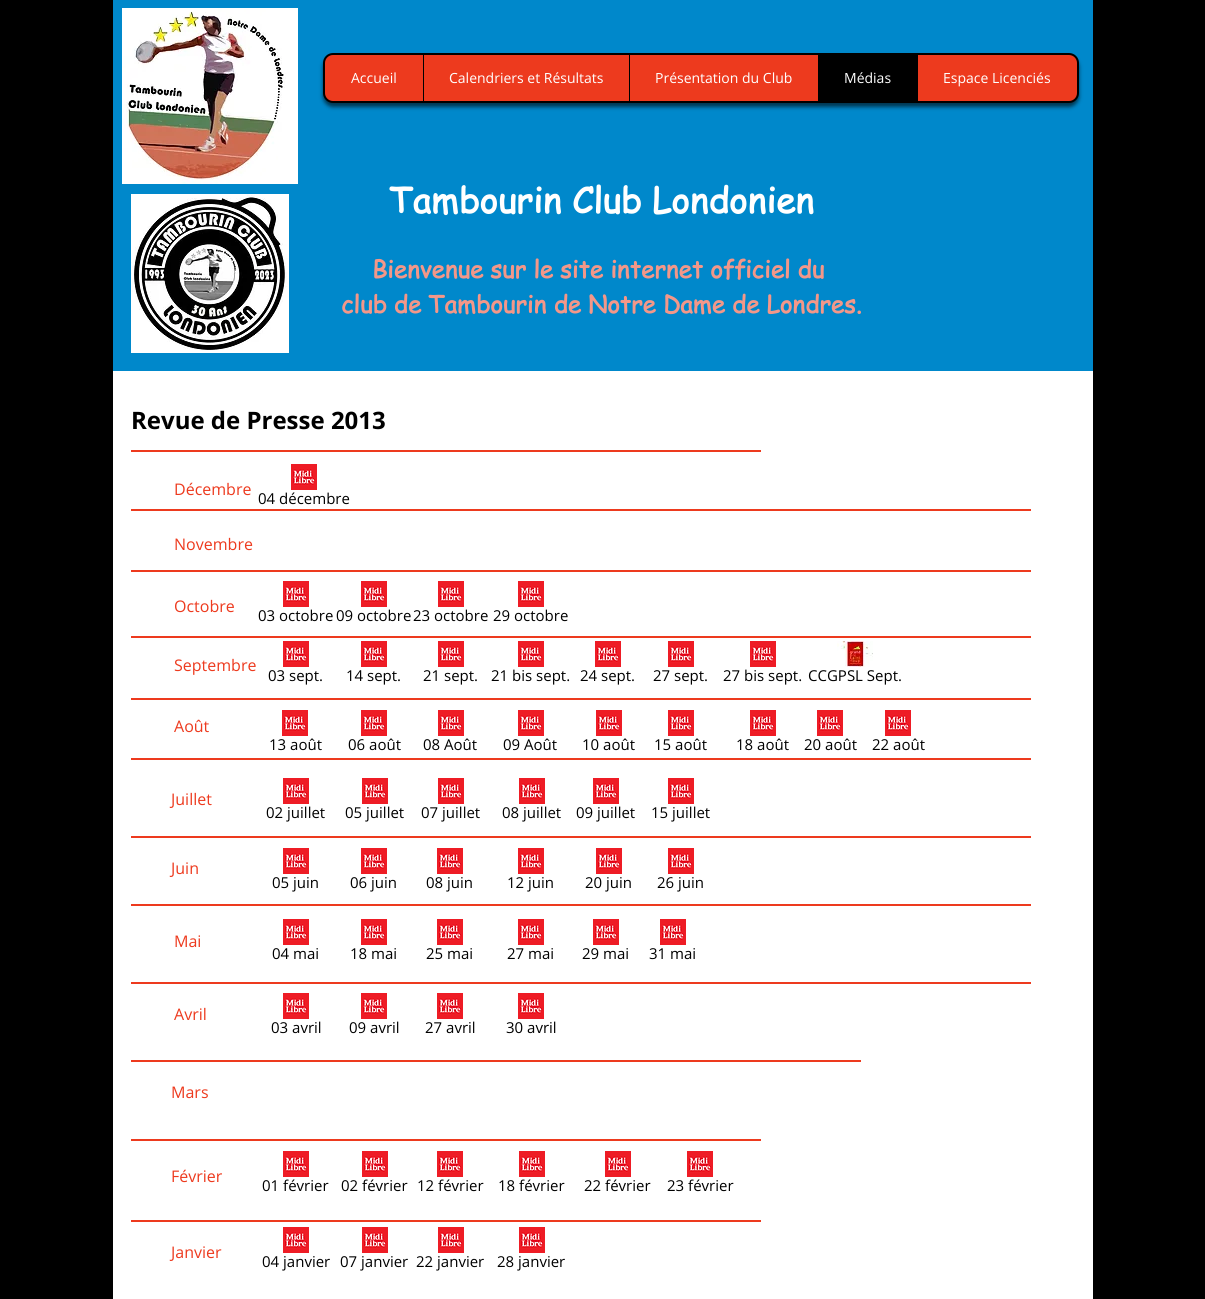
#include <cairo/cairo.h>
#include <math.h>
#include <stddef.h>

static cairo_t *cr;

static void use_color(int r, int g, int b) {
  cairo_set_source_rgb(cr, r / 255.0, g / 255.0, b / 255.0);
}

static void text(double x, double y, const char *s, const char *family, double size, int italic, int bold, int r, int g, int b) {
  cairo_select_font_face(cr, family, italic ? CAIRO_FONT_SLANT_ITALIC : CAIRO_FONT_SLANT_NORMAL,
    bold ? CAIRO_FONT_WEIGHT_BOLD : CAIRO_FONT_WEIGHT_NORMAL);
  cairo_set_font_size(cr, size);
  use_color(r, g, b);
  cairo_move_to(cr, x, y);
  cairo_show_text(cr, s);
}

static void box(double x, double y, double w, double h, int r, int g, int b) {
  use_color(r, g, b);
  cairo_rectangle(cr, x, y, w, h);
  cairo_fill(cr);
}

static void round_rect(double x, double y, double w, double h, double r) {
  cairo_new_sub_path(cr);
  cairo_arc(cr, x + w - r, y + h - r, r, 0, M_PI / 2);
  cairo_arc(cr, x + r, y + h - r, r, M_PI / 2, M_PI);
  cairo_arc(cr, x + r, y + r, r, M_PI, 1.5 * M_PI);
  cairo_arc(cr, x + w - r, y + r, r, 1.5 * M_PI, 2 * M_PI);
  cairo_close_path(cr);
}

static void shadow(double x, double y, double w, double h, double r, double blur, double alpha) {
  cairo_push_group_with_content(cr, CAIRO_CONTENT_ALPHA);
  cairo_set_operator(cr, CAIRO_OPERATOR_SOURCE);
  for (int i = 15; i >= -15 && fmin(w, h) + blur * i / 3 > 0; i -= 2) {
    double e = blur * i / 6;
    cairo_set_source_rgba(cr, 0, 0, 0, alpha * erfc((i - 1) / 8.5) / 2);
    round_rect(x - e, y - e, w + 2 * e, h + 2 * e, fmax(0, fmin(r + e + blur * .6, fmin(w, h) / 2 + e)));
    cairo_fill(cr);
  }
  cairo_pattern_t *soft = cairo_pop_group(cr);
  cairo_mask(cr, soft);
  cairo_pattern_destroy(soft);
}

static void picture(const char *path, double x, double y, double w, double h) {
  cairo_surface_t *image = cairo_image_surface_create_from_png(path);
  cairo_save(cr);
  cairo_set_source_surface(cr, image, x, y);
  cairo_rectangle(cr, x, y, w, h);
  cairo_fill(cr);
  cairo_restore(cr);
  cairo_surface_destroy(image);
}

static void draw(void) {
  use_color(0, 0, 0);
  cairo_paint(cr);
  box(113, 0, 980, 371, 0, 136, 203);
  use_color(0, 0, 0);
  shadow(323, 57, 756, 50, 10, 2, 0.6);
  use_color(237, 58, 30);
  round_rect(324, 54, 754, 48, 9);
  cairo_fill_preserve(cr);
  use_color(0, 0, 0);
  cairo_stroke(cr);
  box(423, 55, 1, 46, 0, 0, 0);
  box(629, 55, 1, 46, 0, 0, 0);
  box(818, 55, 100, 46, 0, 0, 0);
  picture("img_01.png", 122, 8, 176, 176);
  picture("img_02.png", 131, 194, 158, 159);
  box(113, 371, 980, 928, 255, 255, 255);
  box(131, 450, 630, 2, 237, 58, 30);
  picture("img_03.png", 291, 464, 26, 26);
  box(131, 509, 900, 2, 237, 58, 30);
  box(131, 570, 900, 2, 237, 58, 30);
  picture("img_03.png", 283, 581, 26, 26);
  picture("img_03.png", 361, 581, 26, 26);
  picture("img_03.png", 438, 581, 26, 26);
  picture("img_03.png", 518, 581, 26, 26);
  box(131, 636, 900, 2, 237, 58, 30);
  picture("img_03.png", 283, 641, 26, 26);
  picture("img_03.png", 361, 641, 26, 26);
  picture("img_03.png", 438, 641, 26, 26);
  picture("img_03.png", 518, 641, 26, 26);
  picture("img_03.png", 595, 641, 26, 26);
  picture("img_03.png", 668, 641, 26, 26);
  picture("img_03.png", 750, 641, 26, 26);
  picture("img_04.png", 837, 641, 36, 26);
  box(131, 698, 900, 2, 237, 58, 30);
  picture("img_03.png", 282, 710, 26, 26);
  picture("img_03.png", 361, 710, 26, 26);
  picture("img_03.png", 438, 710, 26, 26);
  picture("img_03.png", 518, 710, 26, 26);
  picture("img_03.png", 596, 710, 26, 26);
  picture("img_03.png", 668, 710, 26, 26);
  picture("img_03.png", 750, 710, 26, 26);
  picture("img_03.png", 817, 710, 26, 26);
  picture("img_03.png", 885, 710, 26, 26);
  box(131, 758, 900, 2, 237, 58, 30);
  picture("img_03.png", 283, 778, 26, 26);
  picture("img_03.png", 362, 778, 26, 26);
  picture("img_03.png", 438, 778, 26, 26);
  picture("img_03.png", 519, 778, 26, 26);
  picture("img_03.png", 593, 778, 26, 26);
  picture("img_03.png", 668, 778, 26, 26);
  box(131, 836, 900, 2, 237, 58, 30);
  picture("img_03.png", 283, 848, 26, 26);
  picture("img_03.png", 361, 848, 26, 26);
  picture("img_03.png", 437, 848, 26, 26);
  picture("img_03.png", 518, 848, 26, 26);
  picture("img_03.png", 596, 848, 26, 26);
  picture("img_03.png", 668, 848, 26, 26);
  box(131, 904, 900, 2, 237, 58, 30);
  picture("img_03.png", 283, 919, 26, 26);
  picture("img_03.png", 361, 919, 26, 26);
  picture("img_03.png", 437, 919, 26, 26);
  picture("img_03.png", 518, 919, 26, 26);
  picture("img_03.png", 593, 919, 26, 26);
  picture("img_03.png", 660, 919, 26, 26);
  box(131, 982, 900, 2, 237, 58, 30);
  picture("img_03.png", 283, 993, 26, 26);
  picture("img_03.png", 361, 993, 26, 26);
  picture("img_03.png", 437, 993, 26, 26);
  picture("img_03.png", 518, 993, 26, 26);
  box(131, 1060, 730, 2, 237, 58, 30);
  box(131, 1139, 630, 2, 237, 58, 30);
  picture("img_03.png", 283, 1151, 26, 26);
  picture("img_03.png", 362, 1151, 26, 26);
  picture("img_03.png", 437, 1151, 26, 26);
  picture("img_03.png", 519, 1151, 26, 26);
  picture("img_03.png", 605, 1151, 26, 26);
  picture("img_03.png", 687, 1151, 26, 26);
  box(131, 1220, 630, 2, 237, 58, 30);
  picture("img_03.png", 283, 1227, 26, 26);
  picture("img_03.png", 362, 1227, 26, 26);
  picture("img_03.png", 438, 1227, 26, 26);
  picture("img_03.png", 519, 1227, 26, 26);
  text(351, 83, "Accueil", "Open Sans", 14, 0, 0, 255, 255, 255);
  text(449, 83, "Calendriers et Résultats", "Open Sans", 14, 0, 0, 255, 255, 255);
  text(655, 83, "Présentation du Club", "Open Sans", 14, 0, 0, 255, 255, 255);
  text(844, 83, "Médias", "Open Sans", 14, 0, 0, 255, 255, 255);
  text(943, 83, "Espace Licenciés", "Open Sans", 14, 0, 0, 255, 255, 255);
  text(389, 213, "Tambourin Club Londonien", "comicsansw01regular", 35, 0, 1, 255, 255, 255);
  text(372, 278, "Bienvenue sur le site internet officiel du", "comicsansw01regular", 24, 0, 1, 243, 151, 137);
  text(341, 313, "club de Tambourin de Notre Dame de Londres.", "comicsansw01regular", 24, 0, 1, 243, 151, 137);
  text(131, 429, "Revue de Presse 2013", "Open Sans", 24, 0, 1, 0, 0, 0);
  text(174, 495, "Décembre", "Open Sans", 16, 0, 0, 237, 58, 30);
  text(258, 504, "04 décembre", "Open Sans", 15, 0, 0, 0, 0, 0);
  text(174, 550, "Novembre", "Open Sans", 16, 0, 0, 237, 58, 30);
  text(174, 612, "Octobre", "Open Sans", 16, 0, 0, 237, 58, 30);
  text(258, 621, "03 octobre", "Open Sans", 15, 0, 0, 0, 0, 0);
  text(336, 621, "09 octobre", "Open Sans", 15, 0, 0, 0, 0, 0);
  text(413, 621, "23 octobre", "Open Sans", 15, 0, 0, 0, 0, 0);
  text(493, 621, "29 octobre", "Open Sans", 15, 0, 0, 0, 0, 0);
  text(174, 671, "Septembre", "Open Sans", 16, 0, 0, 237, 58, 30);
  text(268, 681, "03 sept.", "Open Sans", 15, 0, 0, 0, 0, 0);
  text(346, 681, "14 sept.", "Open Sans", 15, 0, 0, 0, 0, 0);
  text(423, 681, "21 sept.", "Open Sans", 15, 0, 0, 0, 0, 0);
  text(491, 681, "21 bis sept.", "Open Sans", 15, 0, 0, 0, 0, 0);
  text(580, 681, "24 sept.", "Open Sans", 15, 0, 0, 0, 0, 0);
  text(653, 681, "27 sept.", "Open Sans", 15, 0, 0, 0, 0, 0);
  text(723, 681, "27 bis sept.", "Open Sans", 15, 0, 0, 0, 0, 0);
  text(808, 681, "CCGPSL Sept.", "Open Sans", 15, 0, 0, 0, 0, 0);
  text(174, 732, "Août", "Open Sans", 16, 0, 0, 237, 58, 30);
  text(269, 750, "13 août", "Open Sans", 15, 0, 0, 0, 0, 0);
  text(348, 750, "06 août", "Open Sans", 15, 0, 0, 0, 0, 0);
  text(423, 750, "08 Août", "Open Sans", 15, 0, 0, 0, 0, 0);
  text(503, 750, "09 Août", "Open Sans", 15, 0, 0, 0, 0, 0);
  text(582, 750, "10 août", "Open Sans", 15, 0, 0, 0, 0, 0);
  text(654, 750, "15 août", "Open Sans", 15, 0, 0, 0, 0, 0);
  text(736, 750, "18 août", "Open Sans", 15, 0, 0, 0, 0, 0);
  text(804, 750, "20 août", "Open Sans", 15, 0, 0, 0, 0, 0);
  text(872, 750, "22 août", "Open Sans", 15, 0, 0, 0, 0, 0);
  text(171, 805, "Juillet", "Open Sans", 16, 0, 0, 237, 58, 30);
  text(266, 818, "02 juillet", "Open Sans", 15, 0, 0, 0, 0, 0);
  text(345, 818, "05 juillet", "Open Sans", 15, 0, 0, 0, 0, 0);
  text(421, 818, "07 juillet", "Open Sans", 15, 0, 0, 0, 0, 0);
  text(502, 818, "08 juillet", "Open Sans", 15, 0, 0, 0, 0, 0);
  text(576, 818, "09 juillet", "Open Sans", 15, 0, 0, 0, 0, 0);
  text(651, 818, "15 juillet", "Open Sans", 15, 0, 0, 0, 0, 0);
  text(171, 874, "Juin", "Open Sans", 16, 0, 0, 237, 58, 30);
  text(272, 888, "05 juin", "Open Sans", 15, 0, 0, 0, 0, 0);
  text(350, 888, "06 juin", "Open Sans", 15, 0, 0, 0, 0, 0);
  text(426, 888, "08 juin", "Open Sans", 15, 0, 0, 0, 0, 0);
  text(507, 888, "12 juin", "Open Sans", 15, 0, 0, 0, 0, 0);
  text(585, 888, "20 juin", "Open Sans", 15, 0, 0, 0, 0, 0);
  text(657, 888, "26 juin", "Open Sans", 15, 0, 0, 0, 0, 0);
  text(174, 947, "Mai", "Open Sans", 16, 0, 0, 237, 58, 30);
  text(272, 959, "04 mai", "Open Sans", 15, 0, 0, 0, 0, 0);
  text(350, 959, "18 mai", "Open Sans", 15, 0, 0, 0, 0, 0);
  text(426, 959, "25 mai", "Open Sans", 15, 0, 0, 0, 0, 0);
  text(507, 959, "27 mai", "Open Sans", 15, 0, 0, 0, 0, 0);
  text(582, 959, "29 mai", "Open Sans", 15, 0, 0, 0, 0, 0);
  text(649, 959, "31 mai", "Open Sans", 15, 0, 0, 0, 0, 0);
  text(174, 1020, "Avril", "Open Sans", 16, 0, 0, 237, 58, 30);
  text(271, 1033, "03 avril", "Open Sans", 15, 0, 0, 0, 0, 0);
  text(349, 1033, "09 avril", "Open Sans", 15, 0, 0, 0, 0, 0);
  text(425, 1033, "27 avril", "Open Sans", 15, 0, 0, 0, 0, 0);
  text(506, 1033, "30 avril", "Open Sans", 15, 0, 0, 0, 0, 0);
  text(171, 1098, "Mars", "Open Sans", 16, 0, 0, 237, 58, 30);
  text(171, 1182, "Février", "Open Sans", 16, 0, 0, 237, 58, 30);
  text(262, 1191, "01 février", "Open Sans", 15, 0, 0, 0, 0, 0);
  text(341, 1191, "02 février", "Open Sans", 15, 0, 0, 0, 0, 0);
  text(417, 1191, "12 février", "Open Sans", 15, 0, 0, 0, 0, 0);
  text(498, 1191, "18 février", "Open Sans", 15, 0, 0, 0, 0, 0);
  text(584, 1191, "22 février", "Open Sans", 15, 0, 0, 0, 0, 0);
  text(667, 1191, "23 février", "Open Sans", 15, 0, 0, 0, 0, 0);
  text(171, 1258, "Janvier", "Open Sans", 16, 0, 0, 237, 58, 30);
  text(262, 1267, "04 janvier", "Open Sans", 15, 0, 0, 0, 0, 0);
  text(340, 1267, "07 janvier", "Open Sans", 15, 0, 0, 0, 0, 0);
  text(416, 1267, "22 janvier", "Open Sans", 15, 0, 0, 0, 0, 0);
  text(497, 1267, "28 janvier", "Open Sans", 15, 0, 0, 0, 0, 0);
}

int main(void) {
  cairo_surface_t *surface = cairo_image_surface_create(CAIRO_FORMAT_RGB24, 1205, 1299);
  cr = cairo_create(surface);
  cairo_font_options_t *options = cairo_font_options_create();
  cairo_font_options_set_hint_metrics(options, CAIRO_HINT_METRICS_OFF);
  cairo_font_options_set_hint_style(options, CAIRO_HINT_STYLE_NONE);
  cairo_set_font_options(cr, options);
  cairo_set_miter_limit(cr, 4);
  draw();
  cairo_surface_write_to_png(surface, "out.png");
  cairo_font_options_destroy(options);
  cairo_destroy(cr);
  cairo_surface_destroy(surface);
  return 0;
}
